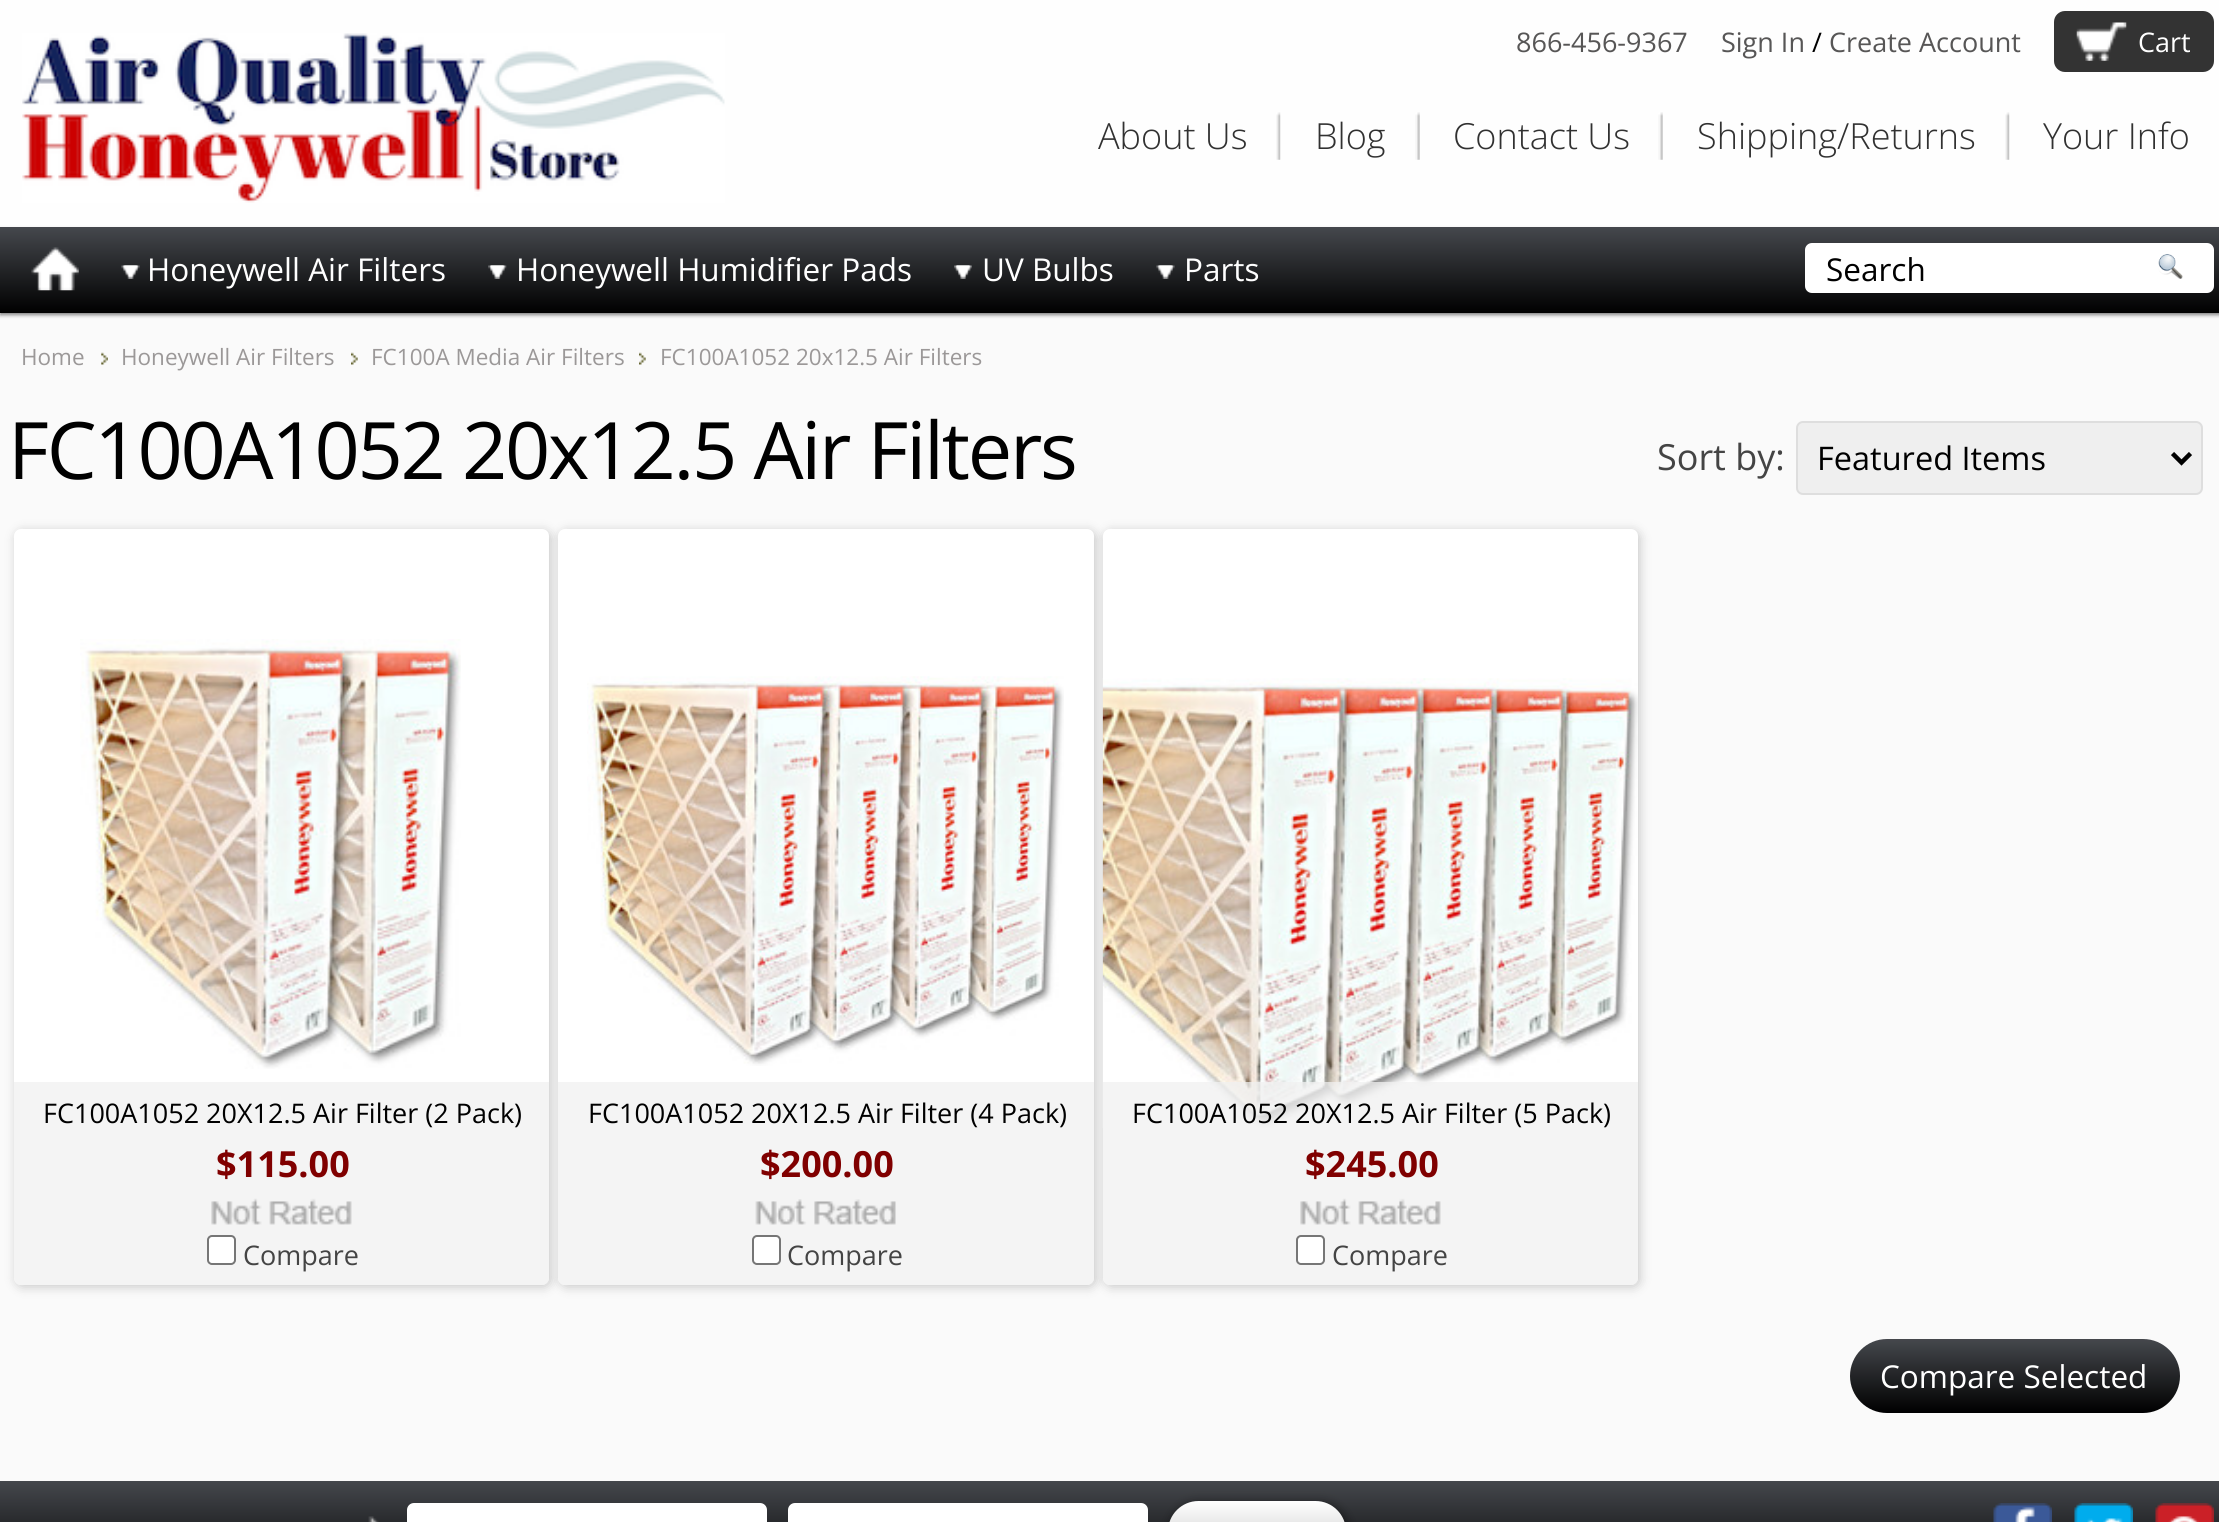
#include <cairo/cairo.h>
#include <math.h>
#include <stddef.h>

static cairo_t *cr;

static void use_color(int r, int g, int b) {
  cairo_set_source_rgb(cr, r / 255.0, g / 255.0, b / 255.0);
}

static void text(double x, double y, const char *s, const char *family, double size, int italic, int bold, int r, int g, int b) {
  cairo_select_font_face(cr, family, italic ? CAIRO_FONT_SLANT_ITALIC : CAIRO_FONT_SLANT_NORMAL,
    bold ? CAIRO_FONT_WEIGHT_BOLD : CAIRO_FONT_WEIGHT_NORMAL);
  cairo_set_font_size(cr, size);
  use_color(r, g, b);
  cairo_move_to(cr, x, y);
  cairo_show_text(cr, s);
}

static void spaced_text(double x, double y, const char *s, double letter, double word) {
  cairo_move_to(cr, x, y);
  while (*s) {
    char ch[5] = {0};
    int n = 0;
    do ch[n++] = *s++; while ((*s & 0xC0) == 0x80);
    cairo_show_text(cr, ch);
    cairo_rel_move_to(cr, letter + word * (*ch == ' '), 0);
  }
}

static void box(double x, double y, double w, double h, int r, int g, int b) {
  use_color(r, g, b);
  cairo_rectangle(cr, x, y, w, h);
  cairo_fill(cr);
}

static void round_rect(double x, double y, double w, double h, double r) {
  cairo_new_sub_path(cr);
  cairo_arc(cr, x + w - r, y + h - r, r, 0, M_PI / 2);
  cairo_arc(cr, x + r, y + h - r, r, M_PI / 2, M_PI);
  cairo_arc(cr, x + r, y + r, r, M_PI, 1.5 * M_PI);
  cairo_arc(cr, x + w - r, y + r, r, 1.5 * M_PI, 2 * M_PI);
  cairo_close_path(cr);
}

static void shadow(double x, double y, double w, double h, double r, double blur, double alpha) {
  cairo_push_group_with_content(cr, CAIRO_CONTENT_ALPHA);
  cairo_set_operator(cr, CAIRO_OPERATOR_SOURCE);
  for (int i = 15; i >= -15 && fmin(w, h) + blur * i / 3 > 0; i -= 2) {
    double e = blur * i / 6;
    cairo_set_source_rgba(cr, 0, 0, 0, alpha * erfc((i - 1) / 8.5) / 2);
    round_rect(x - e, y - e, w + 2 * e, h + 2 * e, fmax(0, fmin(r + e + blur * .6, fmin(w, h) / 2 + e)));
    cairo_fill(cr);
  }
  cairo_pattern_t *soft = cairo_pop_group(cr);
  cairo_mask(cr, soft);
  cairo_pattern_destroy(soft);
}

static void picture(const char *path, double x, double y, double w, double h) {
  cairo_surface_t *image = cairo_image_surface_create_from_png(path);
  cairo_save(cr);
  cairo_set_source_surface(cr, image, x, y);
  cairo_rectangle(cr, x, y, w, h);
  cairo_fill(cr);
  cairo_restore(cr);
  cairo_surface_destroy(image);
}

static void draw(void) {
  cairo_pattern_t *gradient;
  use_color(250, 250, 250);
  cairo_paint(cr);
  box(0, 0, 2219, 227, 254, 254, 254);
  picture("img_01.png", 22, 33, 703, 170);
  use_color(51, 51, 51);
  round_rect(2054, 11, 160, 61, 11);
  cairo_fill(cr);
  picture("img_02.png", 2076, 22, 51, 39);
  picture("img_03.png", 1276, 112, 5, 48);
  picture("img_04.png", 1415, 112, 5, 48);
  picture("img_05.png", 1658, 112, 5, 48);
  picture("img_03.png", 2005, 112, 5, 48);
  use_color(0, 0, 0);
  shadow(0, 230, 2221, 85, 0, 2, 0.5);
  gradient = cairo_pattern_create_linear(1110, 227, 1110, 313);
  cairo_pattern_add_color_stop_rgba(gradient, 0, 0.271, 0.282, 0.302, 1);
  cairo_pattern_add_color_stop_rgba(gradient, 1, 0, 0, 0, 1);
  cairo_set_source(cr, gradient);
  cairo_pattern_destroy(gradient);
  cairo_rectangle(cr, 0, 227, 2219, 86);
  cairo_fill(cr);
  picture("img_06.png", 31, 247, 48, 44);
  picture("img_07.png", 121, 265, 19, 14);
  picture("img_08.png", 121, 265, 19, 14);
  picture("img_09.png", 488, 265, 19, 14);
  picture("img_10.png", 488, 265, 19, 14);
  picture("img_11.png", 954, 265, 18, 14);
  picture("img_12.png", 954, 265, 18, 14);
  picture("img_07.png", 1156, 265, 19, 14);
  picture("img_08.png", 1156, 265, 19, 14);
  use_color(255, 255, 255);
  round_rect(1805, 243, 409, 50, 7);
  cairo_fill(cr);
  picture("img_13.png", 2158, 254, 25, 25);
  picture("img_14.png", 101, 352, 7, 13);
  picture("img_15.png", 351, 352, 7, 13);
  picture("img_16.png", 639, 352, 7, 13);
  use_color(239, 239, 239);
  round_rect(1797, 422, 405, 72, 6);
  cairo_fill_preserve(cr);
  use_color(222, 222, 222);
  cairo_stroke(cr);
  cairo_new_path(cr);
  cairo_move_to(cr, 2172.5, 453.5);
  cairo_line_to(cr, 2181.5, 462.5);
  cairo_line_to(cr, 2190.5, 453.5);
  use_color(0, 0, 0);
  cairo_set_line_width(cr, 4.5);
  cairo_stroke(cr);
  use_color(0, 0, 0);
  shadow(16, 531, 535, 756, 7, 5.5, 0.2);
  use_color(255, 255, 255);
  round_rect(14, 529, 535, 756, 7);
  cairo_fill(cr);
  picture("img_17.png", 80, 639, 381, 430);
  use_color(0, 0, 0);
  shadow(560, 531, 536, 756, 7, 5.5, 0.2);
  cairo_set_source_rgba(cr, 0.941, 0.941, 0.941, 0.75);
  cairo_new_path(cr);
  cairo_move_to(cr, 14, 1082);
  cairo_line_to(cr, 549, 1082);
  cairo_line_to(cr, 549, 1278);
  cairo_curve_to(cr, 549, 1282, 546, 1285, 542, 1285);
  cairo_line_to(cr, 21, 1285);
  cairo_curve_to(cr, 17, 1285, 14, 1282, 14, 1278);
  cairo_close_path(cr);
  cairo_fill(cr);
  picture("img_18.png", 211, 1198, 141, 27);
  use_color(255, 255, 255);
  round_rect(208, 1236, 27, 28, 4);
  cairo_fill_preserve(cr);
  use_color(118, 118, 118);
  cairo_set_line_width(cr, 2);
  cairo_stroke(cr);
  use_color(255, 255, 255);
  round_rect(558, 529, 536, 756, 7);
  cairo_fill(cr);
  picture("img_19.png", 587, 676, 477, 390);
  use_color(0, 0, 0);
  shadow(1105, 531, 535, 756, 7, 5.5, 0.2);
  cairo_set_source_rgba(cr, 0.941, 0.941, 0.941, 0.75);
  cairo_new_path(cr);
  cairo_move_to(cr, 558, 1082);
  cairo_line_to(cr, 1094, 1082);
  cairo_line_to(cr, 1094, 1278);
  cairo_curve_to(cr, 1094, 1282, 1091, 1285, 1087, 1285);
  cairo_line_to(cr, 565, 1285);
  cairo_curve_to(cr, 561, 1285, 558, 1282, 558, 1278);
  cairo_close_path(cr);
  cairo_fill(cr);
  picture("img_20.png", 755, 1199, 141, 26);
  use_color(255, 255, 255);
  round_rect(753, 1236, 27, 28, 4);
  cairo_fill_preserve(cr);
  use_color(118, 118, 118);
  cairo_stroke(cr);
  use_color(255, 255, 255);
  round_rect(1103, 529, 535, 756, 7);
  cairo_fill(cr);
  picture("img_21.png", 1102, 678, 536, 450);
  cairo_set_source_rgba(cr, 0.941, 0.941, 0.941, 0.75);
  cairo_new_path(cr);
  cairo_move_to(cr, 1103, 1082);
  cairo_line_to(cr, 1638, 1082);
  cairo_line_to(cr, 1638, 1278);
  cairo_curve_to(cr, 1638, 1282, 1635, 1285, 1631, 1285);
  cairo_line_to(cr, 1110, 1285);
  cairo_curve_to(cr, 1106, 1285, 1103, 1282, 1103, 1278);
  cairo_close_path(cr);
  cairo_fill(cr);
  picture("img_22.png", 1300, 1198, 141, 27);
  use_color(255, 255, 255);
  round_rect(1297, 1236, 27, 28, 4);
  cairo_fill_preserve(cr);
  use_color(118, 118, 118);
  cairo_stroke(cr);
  gradient = cairo_pattern_create_linear(2015, 1339, 2015, 1413);
  cairo_pattern_add_color_stop_rgba(gradient, 0, 0.271, 0.282, 0.302, 1);
  cairo_pattern_add_color_stop_rgba(gradient, 1, 0, 0, 0, 1);
  cairo_set_source(cr, gradient);
  cairo_pattern_destroy(gradient);
  round_rect(1850, 1339, 330, 74, 37);
  cairo_fill(cr);
  gradient = cairo_pattern_create_linear(1110, 1480, 1110, 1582);
  cairo_pattern_add_color_stop_rgba(gradient, 0, 0.271, 0.282, 0.302, 1);
  cairo_pattern_add_color_stop_rgba(gradient, 1, 0, 0, 0, 1);
  cairo_set_source(cr, gradient);
  cairo_pattern_destroy(gradient);
  cairo_rectangle(cr, 0, 1481, 2219, 41);
  cairo_fill(cr);
  picture("img_23.png", 368, 1516, 11, 6);
  use_color(255, 255, 255);
  round_rect(407, 1503, 360, 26, 7);
  cairo_fill(cr);
  round_rect(788, 1503, 360, 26, 7);
  cairo_fill(cr);
  use_color(0, 0, 0);
  shadow(1170, 1503, 178, 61, 30.5, 5.5, 0.5);
  gradient = cairo_pattern_create_linear(1257, 1501, 1257, 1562);
  cairo_pattern_add_color_stop_rgba(gradient, 0, 1, 1, 1, 1);
  cairo_pattern_add_color_stop_rgba(gradient, 1, 0.753, 0.753, 0.753, 1);
  cairo_set_source(cr, gradient);
  cairo_pattern_destroy(gradient);
  round_rect(1168, 1501, 178, 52, 30.5);
  cairo_fill(cr);
  picture("img_24.png", 1993, 1503, 59, 19);
  picture("img_25.png", 2074, 1503, 59, 19);
  picture("img_26.png", 2155, 1503, 59, 19);
  text(1516, 52, "866-456-9367", "Open Sans", 27, 0, 0, 87, 86, 86);
  text(1721, 52, "Sign In", "Open Sans", 27, 0, 0, 87, 86, 86);
  text(1812, 52, "/", "Open Sans", 27, 0, 0, 0, 0, 0);
  text(1829, 52, "Create Account", "Open Sans", 27, 0, 0, 87, 86, 86);
  text(2138, 52, "Cart", "Open Sans", 27, 0, 0, 255, 255, 255);
  text(1098, 149, "About Us", "Open Sans Light", 36, 0, 0, 49, 49, 49);
  text(1315, 149, "Blog", "Open Sans Light", 36, 0, 0, 49, 49, 49);
  text(1453, 149, "Contact Us", "Open Sans Light", 36, 0, 0, 49, 49, 49);
  text(1697, 149, "Shipping/Returns", "Open Sans Light", 36, 0, 0, 49, 49, 49);
  text(2043, 149, "Your Info", "Open Sans Light", 36, 0, 0, 49, 49, 49);
  text(147, 281, "Honeywell Air Filters", "Open Sans", 31.5, 0, 0, 255, 255, 255);
  text(516, 281, "Honeywell Humidifier Pads", "Open Sans", 31.5, 0, 0, 255, 255, 255);
  text(982, 281, "UV Bulbs", "Open Sans", 31.5, 0, 0, 255, 255, 255);
  text(1184, 281, "Parts", "Open Sans", 31.5, 0, 0, 255, 255, 255);
  text(1826, 281, "Search", "Open Sans", 31.5, 0, 0, 0, 0, 0);
  text(21, 365, "Home", "Open Sans", 22.5, 0, 0, 155, 152, 152);
  text(121, 365, "Honeywell Air Filters", "Open Sans", 22.5, 0, 0, 155, 152, 152);
  text(371, 365, "FC100A Media Air Filters", "Open Sans", 22.5, 0, 0, 155, 152, 152);
  text(660, 365, "FC100A1052 20x12.5 Air Filters", "Open Sans", 22.5, 0, 0, 155, 152, 152);
  cairo_set_font_size(cr, 79.25);
  use_color(0, 0, 0);
  spaced_text(8, 479, "FC100A1052 20x12.5 Air Filters", -2.25, 0);
  text(1657, 470, "Sort by:", "Open Sans", 36, 0, 0, 68, 68, 68);
  text(1817, 470, "Featured Items", "Open Sans", 32.5, 0, 0, 0, 0, 0);
  text(43, 1123, "FC100A1052 20X12.5 Air Filter (2 Pack)", "Open Sans", 27, 0, 0, 0, 0, 0);
  text(216, 1177, "$115.00", "Open Sans", 36, 0, 1, 128, 0, 0);
  text(243, 1265, "Compare", "Open Sans", 27, 0, 0, 68, 68, 68);
  text(588, 1123, "FC100A1052 20X12.5 Air Filter (4 Pack)", "Open Sans", 27, 0, 0, 0, 0, 0);
  text(760, 1177, "$200.00", "Open Sans", 36, 0, 1, 128, 0, 0);
  text(787, 1265, "Compare", "Open Sans", 27, 0, 0, 68, 68, 68);
  text(1132, 1123, "FC100A1052 20X12.5 Air Filter (5 Pack)", "Open Sans", 27, 0, 0, 0, 0, 0);
  text(1305, 1177, "$245.00", "Open Sans", 36, 0, 1, 128, 0, 0);
  text(1332, 1265, "Compare", "Open Sans", 27, 0, 0, 68, 68, 68);
  text(1880, 1388, "Compare Selected", "Open Sans", 31.5, 0, 0, 255, 255, 255);
}

int main(void) {
  cairo_surface_t *surface = cairo_image_surface_create(CAIRO_FORMAT_RGB24, 2219, 1522);
  cr = cairo_create(surface);
  cairo_font_options_t *options = cairo_font_options_create();
  cairo_font_options_set_hint_metrics(options, CAIRO_HINT_METRICS_OFF);
  cairo_font_options_set_hint_style(options, CAIRO_HINT_STYLE_NONE);
  cairo_set_font_options(cr, options);
  cairo_set_miter_limit(cr, 4);
  draw();
  cairo_surface_write_to_png(surface, "out.png");
  cairo_font_options_destroy(options);
  cairo_destroy(cr);
  cairo_surface_destroy(surface);
  return 0;
}
